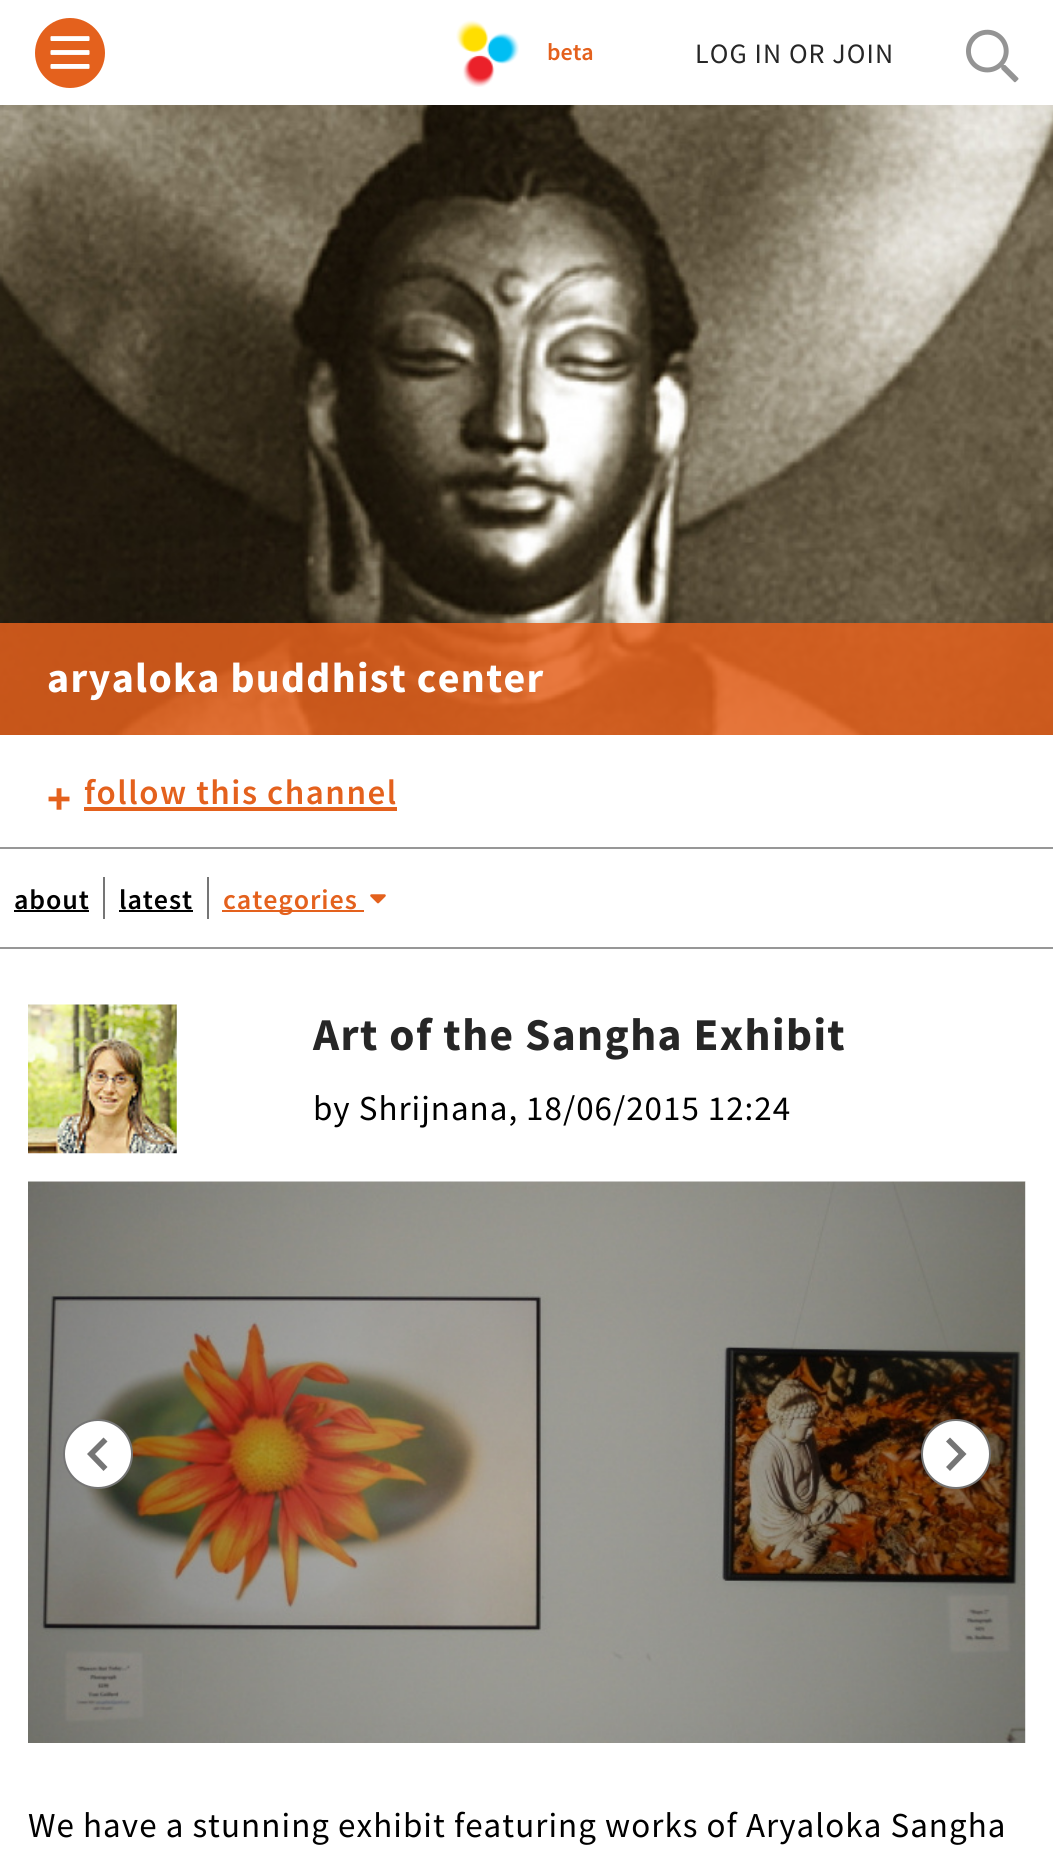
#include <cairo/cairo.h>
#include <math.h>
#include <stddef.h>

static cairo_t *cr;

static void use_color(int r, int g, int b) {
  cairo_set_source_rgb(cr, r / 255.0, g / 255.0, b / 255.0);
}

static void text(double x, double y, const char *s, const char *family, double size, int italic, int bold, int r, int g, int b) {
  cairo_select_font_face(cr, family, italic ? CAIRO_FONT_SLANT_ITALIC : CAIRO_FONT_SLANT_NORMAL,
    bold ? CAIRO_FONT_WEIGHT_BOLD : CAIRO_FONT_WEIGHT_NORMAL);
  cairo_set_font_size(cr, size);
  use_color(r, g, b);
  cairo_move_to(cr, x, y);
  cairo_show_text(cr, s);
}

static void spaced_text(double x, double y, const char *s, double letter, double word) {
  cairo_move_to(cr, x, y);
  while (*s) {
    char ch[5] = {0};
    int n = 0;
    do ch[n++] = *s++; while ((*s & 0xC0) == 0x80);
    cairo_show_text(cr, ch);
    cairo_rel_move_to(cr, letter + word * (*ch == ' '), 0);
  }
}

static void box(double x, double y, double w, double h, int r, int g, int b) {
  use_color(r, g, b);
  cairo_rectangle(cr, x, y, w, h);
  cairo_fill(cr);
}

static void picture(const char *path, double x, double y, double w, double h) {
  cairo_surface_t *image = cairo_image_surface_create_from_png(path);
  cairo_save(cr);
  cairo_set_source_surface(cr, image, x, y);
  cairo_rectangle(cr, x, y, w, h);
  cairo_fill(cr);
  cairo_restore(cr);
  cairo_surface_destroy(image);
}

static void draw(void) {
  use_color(255, 255, 255);
  cairo_paint(cr);
  use_color(228, 97, 29);
  cairo_arc(cr, 70, 53, 35, 0, 2 * M_PI);
  cairo_fill(cr);
  picture("img_01.png", 50, 36, 40, 33);
  picture("img_02.png", 456, 20, 63, 67);
  picture("img_03.png", 966, 29, 53, 54);
  picture("img_04.png", 0, 105, 1053, 630);
  cairo_set_source_rgba(cr, 0.894, 0.38, 0.114, 0.85);
  cairo_rectangle(cr, 0, 623, 1053, 112);
  cairo_fill(cr);
  box(84, 807, 313, 4, 228, 97, 29);
  box(0, 847, 1053, 2, 151, 151, 151);
  box(0, 947, 1053, 2, 151, 151, 151);
  box(103, 877, 2, 42, 117, 117, 117);
  box(14, 910, 75, 2, 0, 0, 0);
  box(207, 877, 2, 42, 117, 117, 117);
  box(119, 910, 74, 2, 0, 0, 0);
  box(222, 910, 142, 2, 228, 97, 29);
  picture("img_05.png", 370, 894, 16, 10);
  picture("img_06.png", 28, 1004, 149, 150);
  box(28, 1181, 998, 562, 240, 240, 240);
  picture("img_07.png", 28, 1181, 998, 562);
  use_color(255, 255, 255);
  cairo_arc(cr, 98, 1454, 34, 0, 2 * M_PI);
  cairo_fill_preserve(cr);
  use_color(117, 117, 117);
  cairo_stroke(cr);
  cairo_new_path(cr);
  cairo_move_to(cr, 107.5, 1467);
  cairo_line_to(cr, 95, 1454);
  cairo_line_to(cr, 107.5, 1441.5);
  cairo_line_to(cr, 103.5, 1437.5);
  cairo_line_to(cr, 87, 1454);
  cairo_line_to(cr, 103.5, 1471);
  cairo_close_path(cr);
  cairo_fill(cr);
  use_color(255, 255, 255);
  cairo_arc(cr, 956, 1454, 34, 0, 2 * M_PI);
  cairo_fill_preserve(cr);
  use_color(117, 117, 117);
  cairo_stroke(cr);
  cairo_new_path(cr);
  cairo_move_to(cr, 946, 1467);
  cairo_line_to(cr, 958.5, 1454);
  cairo_line_to(cr, 946, 1441.5);
  cairo_line_to(cr, 950, 1437.5);
  cairo_line_to(cr, 966.5, 1454);
  cairo_line_to(cr, 950, 1471);
  cairo_close_path(cr);
  cairo_fill(cr);
  text(547, 60, "beta", "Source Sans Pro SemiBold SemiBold", 24, 0, 0, 228, 97, 29);
  cairo_select_font_face(cr, "Source Sans Pro", CAIRO_FONT_SLANT_NORMAL, CAIRO_FONT_WEIGHT_NORMAL);
  cairo_set_font_size(cr, 28);
  use_color(38, 38, 38);
  spaced_text(695, 63, "LOG IN OR JOIN", 1.1, 0);
  cairo_select_font_face(cr, "Source Sans Pro", CAIRO_FONT_SLANT_NORMAL, CAIRO_FONT_WEIGHT_BOLD);
  cairo_set_font_size(cr, 42);
  use_color(255, 255, 255);
  spaced_text(47, 692, "aryaloka buddhist center", 1.3, 0);
  cairo_set_font_size(cr, 45.5);
  use_color(228, 97, 29);
  spaced_text(47, 814, "+", 2, 0);
  cairo_select_font_face(cr, "Source Sans Pro SemiBold SemiBold", CAIRO_FONT_SLANT_NORMAL, CAIRO_FONT_WEIGHT_NORMAL);
  cairo_set_font_size(cr, 35);
  spaced_text(84, 804, "follow this channel", 1.5, 0);
  cairo_set_font_size(cr, 28);
  use_color(0, 0, 0);
  spaced_text(14, 909, "about", 0.9, 0);
  spaced_text(119, 909, "latest", 0.9, 0);
  use_color(228, 97, 29);
  spaced_text(223, 909, "categories", 0.9, 0);
  cairo_select_font_face(cr, "Source Sans Pro", CAIRO_FONT_SLANT_NORMAL, CAIRO_FONT_WEIGHT_BOLD);
  cairo_set_font_size(cr, 45.5);
  use_color(38, 38, 38);
  spaced_text(313, 1050, "Art of the Sangha Exhibit", 1.4, 0);
  cairo_select_font_face(cr, "Source Sans Pro", CAIRO_FONT_SLANT_NORMAL, CAIRO_FONT_WEIGHT_NORMAL);
  cairo_set_font_size(cr, 35);
  use_color(0, 0, 0);
  spaced_text(313, 1120, "by Shrijnana, 18/06/2015 12:24", 1, 0);
  spaced_text(28, 1837, "We have a stunning exhibit featuring works of Aryaloka Sangha", 1.05, 0);
}

int main(void) {
  cairo_surface_t *surface = cairo_image_surface_create(CAIRO_FORMAT_RGB24, 1053, 1861);
  cr = cairo_create(surface);
  cairo_font_options_t *options = cairo_font_options_create();
  cairo_font_options_set_hint_metrics(options, CAIRO_HINT_METRICS_OFF);
  cairo_font_options_set_hint_style(options, CAIRO_HINT_STYLE_NONE);
  cairo_set_font_options(cr, options);
  cairo_set_miter_limit(cr, 4);
  draw();
  cairo_surface_write_to_png(surface, "out.png");
  cairo_font_options_destroy(options);
  cairo_destroy(cr);
  cairo_surface_destroy(surface);
  return 0;
}
